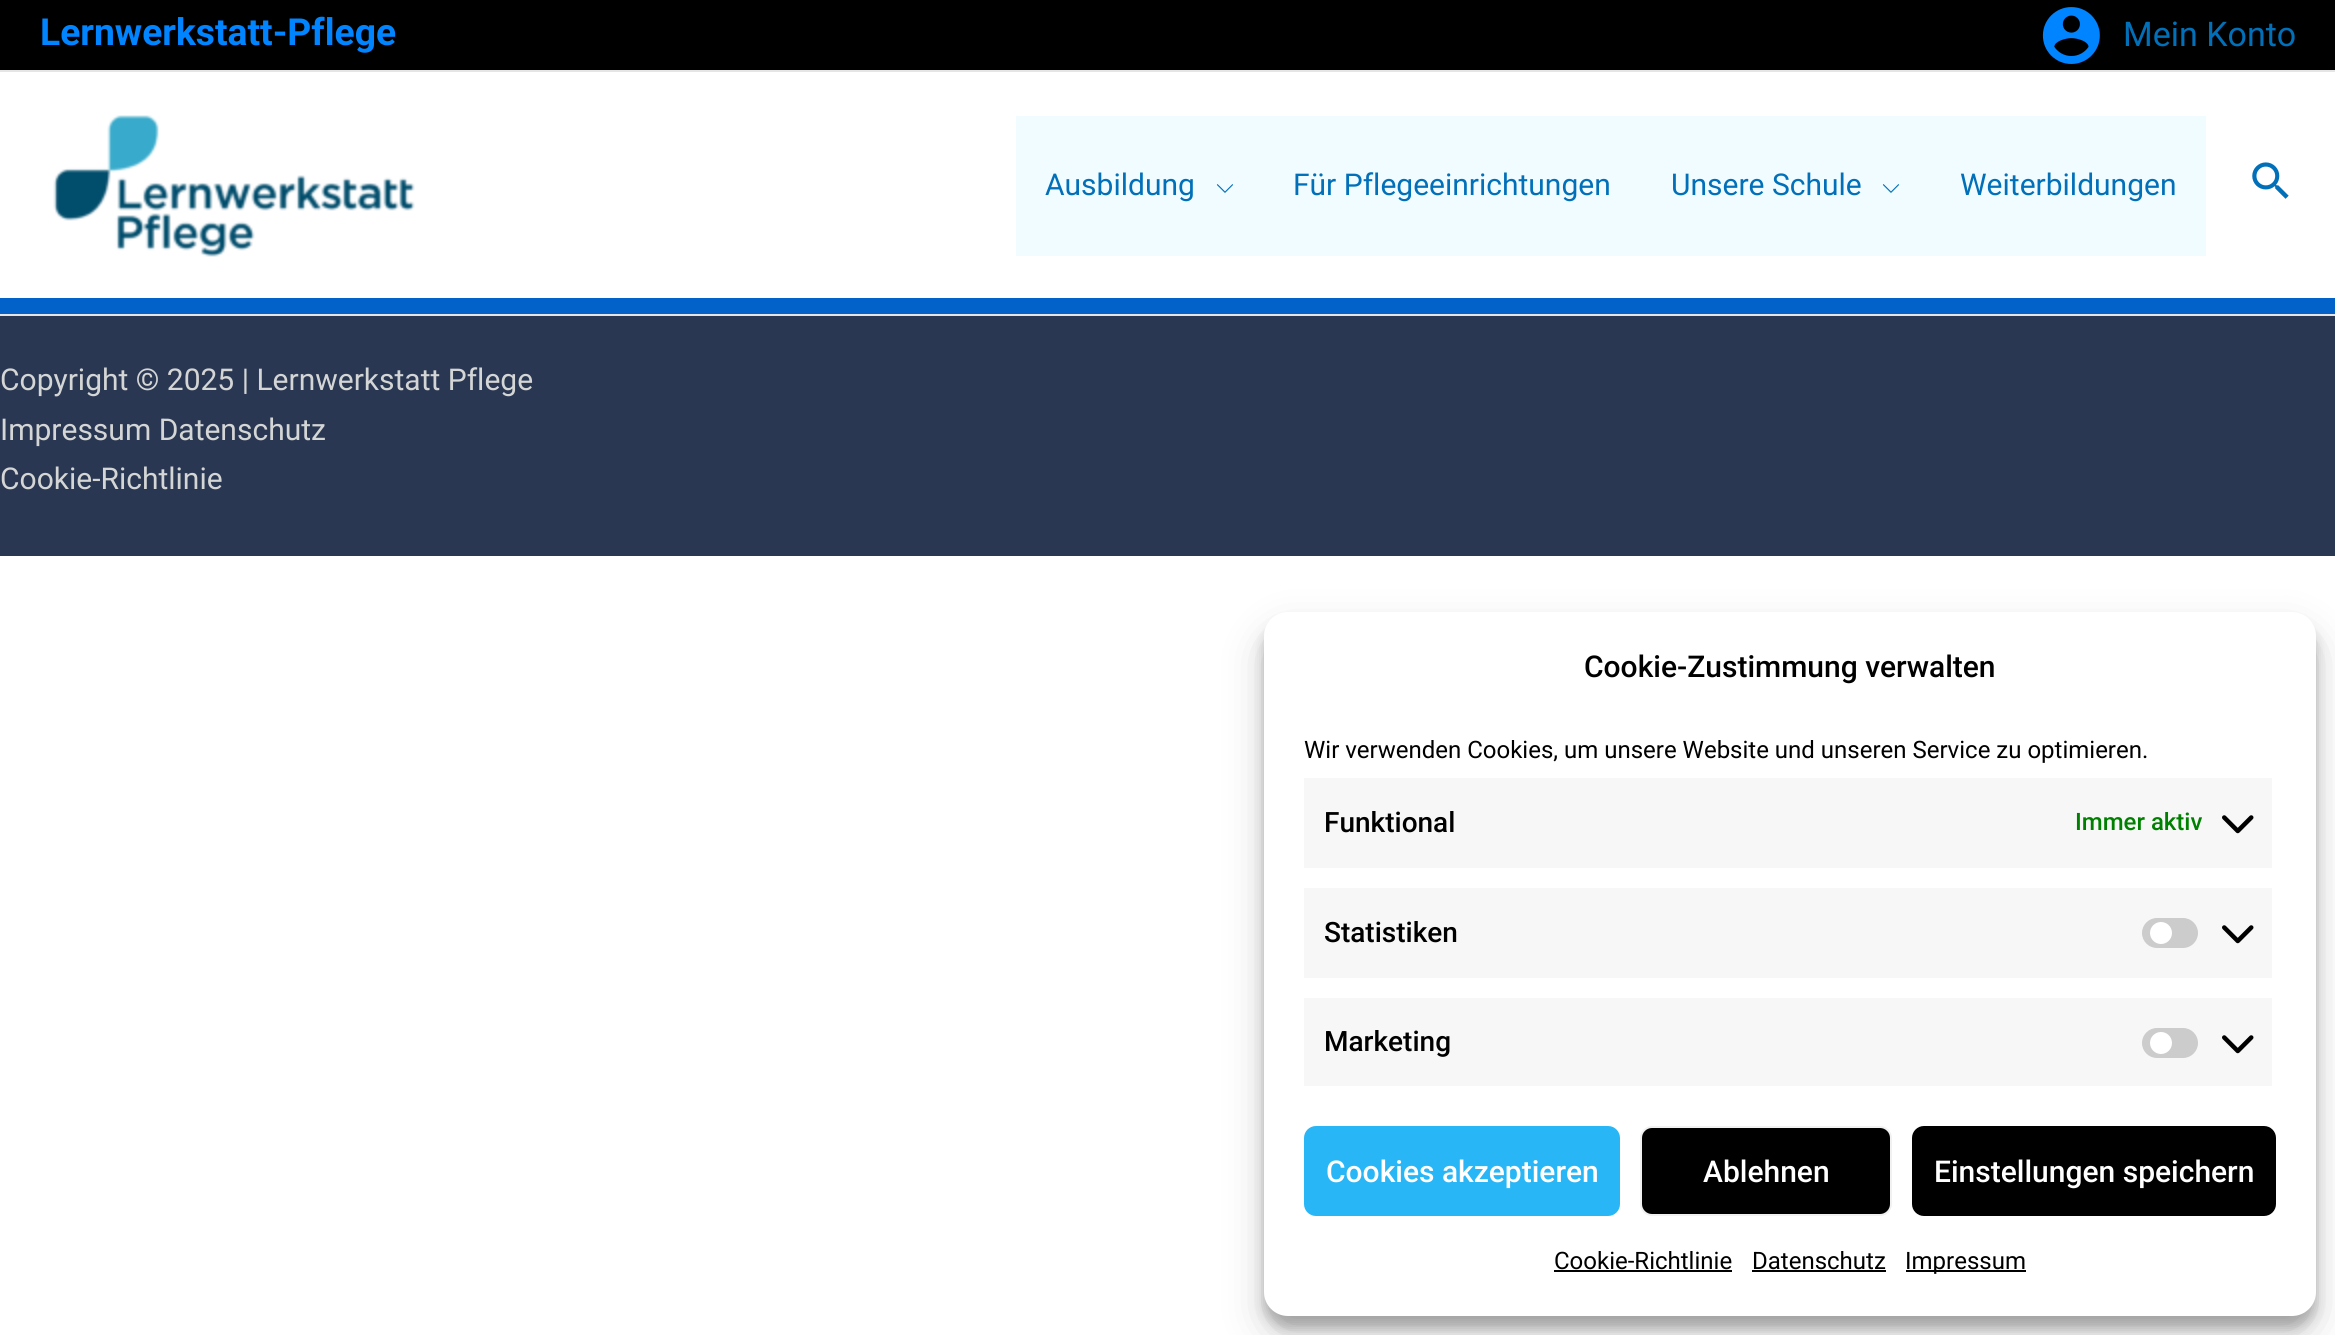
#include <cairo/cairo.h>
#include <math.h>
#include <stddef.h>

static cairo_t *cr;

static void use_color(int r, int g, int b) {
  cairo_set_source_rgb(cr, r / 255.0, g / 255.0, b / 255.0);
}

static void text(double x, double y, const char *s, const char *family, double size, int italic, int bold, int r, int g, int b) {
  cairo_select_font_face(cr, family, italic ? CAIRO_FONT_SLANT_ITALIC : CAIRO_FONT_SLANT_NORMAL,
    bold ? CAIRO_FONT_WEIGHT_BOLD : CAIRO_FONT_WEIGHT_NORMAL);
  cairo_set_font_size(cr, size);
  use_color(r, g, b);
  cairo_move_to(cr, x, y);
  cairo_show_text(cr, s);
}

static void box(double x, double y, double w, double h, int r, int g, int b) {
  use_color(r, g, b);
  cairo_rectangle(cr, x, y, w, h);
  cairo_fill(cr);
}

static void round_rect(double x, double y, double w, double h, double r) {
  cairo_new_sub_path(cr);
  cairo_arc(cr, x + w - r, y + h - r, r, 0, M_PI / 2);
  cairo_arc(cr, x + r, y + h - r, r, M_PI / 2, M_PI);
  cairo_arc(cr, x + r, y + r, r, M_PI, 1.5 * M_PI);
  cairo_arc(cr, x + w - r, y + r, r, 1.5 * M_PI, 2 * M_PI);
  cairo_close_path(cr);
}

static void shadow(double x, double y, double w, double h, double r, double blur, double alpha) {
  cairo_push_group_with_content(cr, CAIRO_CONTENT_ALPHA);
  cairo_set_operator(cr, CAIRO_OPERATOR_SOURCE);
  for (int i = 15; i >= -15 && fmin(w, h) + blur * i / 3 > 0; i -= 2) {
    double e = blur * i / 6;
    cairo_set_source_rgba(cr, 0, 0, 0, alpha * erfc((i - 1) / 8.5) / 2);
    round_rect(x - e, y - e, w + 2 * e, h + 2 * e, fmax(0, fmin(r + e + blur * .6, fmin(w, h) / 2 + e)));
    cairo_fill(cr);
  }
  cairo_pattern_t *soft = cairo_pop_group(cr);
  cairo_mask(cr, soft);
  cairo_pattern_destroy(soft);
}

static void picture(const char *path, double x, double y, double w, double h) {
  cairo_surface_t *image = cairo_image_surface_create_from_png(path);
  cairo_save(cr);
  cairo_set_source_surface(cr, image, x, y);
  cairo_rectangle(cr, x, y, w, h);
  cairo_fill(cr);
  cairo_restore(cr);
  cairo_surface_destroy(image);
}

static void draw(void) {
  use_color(255, 255, 255);
  cairo_paint(cr);
  box(0, 0, 2335, 70, 0, 0, 0);
  box(0, 70, 2335, 2, 229, 229, 229);
  picture("img_01.png", 2042, 7, 58, 57);
  box(0, 298, 2335, 16, 2, 98, 201);
  picture("img_02.png", 53, 115, 362, 142);
  box(1016, 116, 1190, 140, 240, 252, 255);
  picture("img_03.png", 1216, 184, 17, 9);
  picture("img_03.png", 1882, 184, 17, 9);
  picture("img_04.png", 2252, 162, 37, 37);
  box(0, 316, 2335, 240, 42, 55, 83);
  box(0, 314, 2335, 2, 229, 229, 229);
  use_color(0, 0, 0);
  shadow(1264, 624, 1052, 704, 24, 6, 0.23);
  shadow(1264, 632, 1052, 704, 24, 20, 0.19);
  use_color(255, 255, 255);
  round_rect(1264, 612, 1052, 704, 24);
  cairo_fill(cr);
  box(1304, 778, 968, 90, 247, 247, 247);
  picture("img_05.png", 2222, 815, 32, 19);
  box(1304, 888, 968, 90, 247, 247, 247);
  use_color(204, 204, 204);
  round_rect(2142, 918, 56, 30, 15);
  cairo_fill(cr);
  use_color(255, 255, 255);
  cairo_arc(cr, 2161, 933, 11, 0, 2 * M_PI);
  cairo_fill(cr);
  picture("img_05.png", 2222, 925, 32, 19);
  box(1304, 998, 968, 88, 247, 247, 247);
  use_color(204, 204, 204);
  round_rect(2142, 1028, 56, 30, 15);
  cairo_fill(cr);
  use_color(255, 255, 255);
  cairo_arc(cr, 2161, 1043, 11, 0, 2 * M_PI);
  cairo_fill(cr);
  picture("img_05.png", 2222, 1035, 32, 19);
  use_color(41, 182, 246);
  round_rect(1305, 1127, 314, 88, 11);
  cairo_fill_preserve(cr);
  cairo_stroke(cr);
  use_color(0, 0, 0);
  round_rect(1641, 1127, 250, 88, 11);
  cairo_fill_preserve(cr);
  use_color(241, 241, 241);
  cairo_stroke(cr);
  use_color(0, 0, 0);
  round_rect(1913, 1127, 362, 88, 11);
  cairo_fill_preserve(cr);
  cairo_stroke(cr);
  box(1554, 1270, 178, 2, 0, 0, 0);
  box(1752, 1270, 134, 2, 0, 0, 0);
  box(1906, 1270, 120, 2, 0, 0, 0);
  text(40, 45, "Lernwerkstatt-Pflege", "Roboto", 37.25, 0, 1, 0, 132, 255);
  text(2123, 46, "Mein Konto", "Roboto", 34, 0, 0, 1, 112, 185);
  text(1045, 195, "Ausbildung", "Roboto", 30, 0, 0, 1, 112, 185);
  text(1293, 195, "Für Pflegeeinrichtungen", "Roboto", 30, 0, 0, 1, 112, 185);
  text(1671, 195, "Unsere Schule", "Roboto", 30, 0, 0, 1, 112, 185);
  text(1960, 195, "Weiterbildungen", "Roboto", 30, 0, 0, 1, 112, 185);
  text(0, 390, "Copyright © 2025 | Lernwerkstatt Pflege", "Roboto", 30, 0, 0, 212, 214, 213);
  text(0, 440, "Impressum Datenschutz", "Roboto", 30, 0, 0, 212, 214, 213);
  text(0, 489, "Cookie-Richtlinie", "Roboto", 30, 0, 0, 212, 214, 213);
  text(1584, 677, "Cookie-Zustimmung verwalten", "Roboto Medium", 30, 0, 0, 0, 0, 0);
  text(1304, 758, "Wir verwenden Cookies, um unsere Website und unseren Service zu optimieren.", "Roboto", 24, 0, 0, 0, 0, 0);
  text(1324, 832, "Funktional", "Roboto Medium", 28, 0, 0, 0, 0, 0);
  text(2075, 830, "Immer aktiv", "Roboto Medium", 24, 0, 0, 0, 128, 0);
  text(1324, 942, "Statistiken", "Roboto Medium", 28, 0, 0, 0, 0, 0);
  text(1324, 1051, "Marketing", "Roboto Medium", 28, 0, 0, 0, 0, 0);
  text(1326, 1182, "Cookies akzeptieren", "Roboto Medium", 30, 0, 0, 255, 255, 255);
  text(1703, 1182, "Ablehnen", "Roboto Medium", 30, 0, 0, 255, 255, 255);
  text(1934, 1182, "Einstellungen speichern", "Roboto Medium", 30, 0, 0, 255, 255, 255);
  text(1554, 1269, "Cookie-Richtlinie", "Roboto", 24, 0, 0, 0, 0, 0);
  text(1752, 1269, "Datenschutz", "Roboto", 24, 0, 0, 0, 0, 0);
  text(1905, 1269, "Impressum", "Roboto", 24, 0, 0, 0, 0, 0);
}

int main(void) {
  cairo_surface_t *surface = cairo_image_surface_create(CAIRO_FORMAT_RGB24, 2335, 1335);
  cr = cairo_create(surface);
  cairo_font_options_t *options = cairo_font_options_create();
  cairo_font_options_set_hint_metrics(options, CAIRO_HINT_METRICS_OFF);
  cairo_font_options_set_hint_style(options, CAIRO_HINT_STYLE_NONE);
  cairo_set_font_options(cr, options);
  cairo_set_miter_limit(cr, 4);
  draw();
  cairo_surface_write_to_png(surface, "out.png");
  cairo_font_options_destroy(options);
  cairo_destroy(cr);
  cairo_surface_destroy(surface);
  return 0;
}
